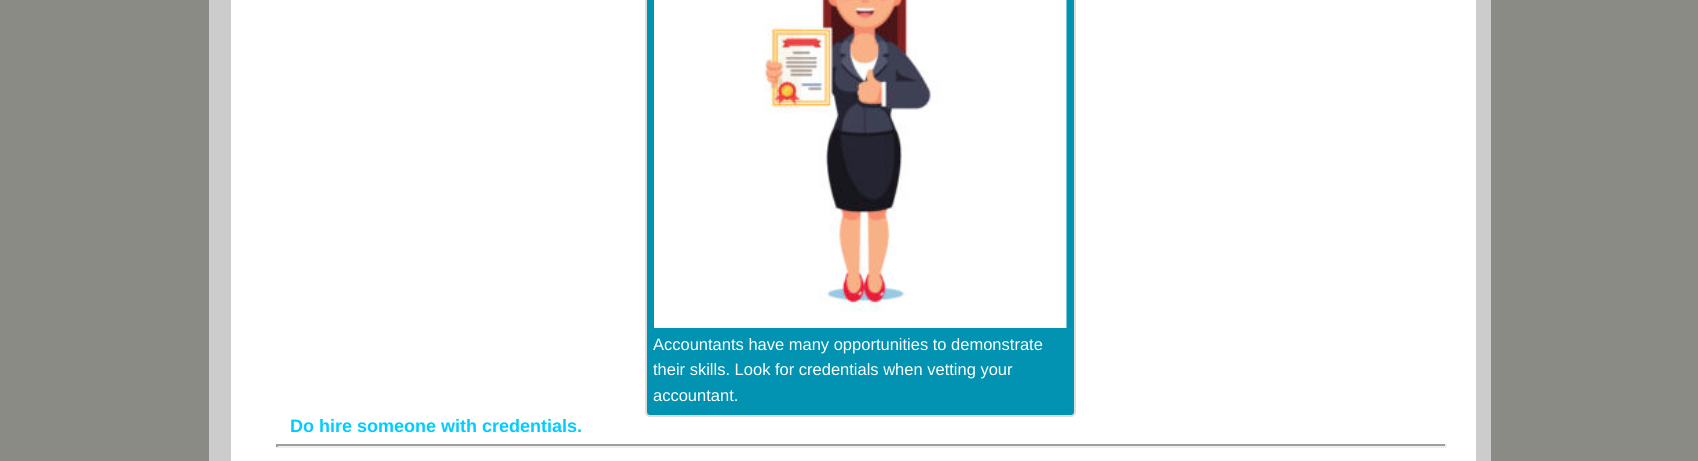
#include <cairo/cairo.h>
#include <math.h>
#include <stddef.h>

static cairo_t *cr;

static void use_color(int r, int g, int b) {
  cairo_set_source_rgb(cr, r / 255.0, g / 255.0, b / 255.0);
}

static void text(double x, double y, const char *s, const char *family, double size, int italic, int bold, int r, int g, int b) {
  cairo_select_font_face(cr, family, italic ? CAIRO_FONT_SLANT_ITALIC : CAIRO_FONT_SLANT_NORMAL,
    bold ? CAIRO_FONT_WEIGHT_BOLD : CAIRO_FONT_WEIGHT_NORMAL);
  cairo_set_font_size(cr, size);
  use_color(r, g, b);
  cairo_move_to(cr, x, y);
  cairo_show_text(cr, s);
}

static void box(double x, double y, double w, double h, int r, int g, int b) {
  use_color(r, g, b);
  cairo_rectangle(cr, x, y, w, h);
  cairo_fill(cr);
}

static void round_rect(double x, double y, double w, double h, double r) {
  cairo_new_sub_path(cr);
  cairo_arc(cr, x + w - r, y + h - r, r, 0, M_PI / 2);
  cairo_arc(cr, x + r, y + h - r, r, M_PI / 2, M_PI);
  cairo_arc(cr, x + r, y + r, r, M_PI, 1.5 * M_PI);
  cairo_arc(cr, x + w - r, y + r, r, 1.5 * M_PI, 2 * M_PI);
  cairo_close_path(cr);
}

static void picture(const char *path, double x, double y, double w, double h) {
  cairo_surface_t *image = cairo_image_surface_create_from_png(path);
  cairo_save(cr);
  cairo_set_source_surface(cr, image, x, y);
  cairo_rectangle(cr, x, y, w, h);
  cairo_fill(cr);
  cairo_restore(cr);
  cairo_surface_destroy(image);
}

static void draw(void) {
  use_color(139, 139, 134);
  cairo_paint(cr);
  box(209, 0, 1282, 461, 204, 204, 204);
  box(231, 0, 1245, 461, 255, 255, 255);
  use_color(1, 147, 177);
  round_rect(646, -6, 429, 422, 4);
  cairo_fill_preserve(cr);
  use_color(221, 221, 221);
  cairo_stroke(cr);
  picture("img_01.png", 654, 0, 413, 328);
  box(276, 444, 1170, 2, 159, 159, 159);
  box(1445, 444, 2, 3, 238, 238, 238);
  box(276, 446, 1170, 2, 238, 238, 238);
  box(276, 444, 2, 3, 159, 159, 159);
  text(653, 350, "Accountants have many opportunities to demonstrate", "Liberation Sans", 16.5, 0, 0, 255, 255, 255);
  text(653, 375, "their skills. Look for credentials when vetting your", "Liberation Sans", 16.5, 0, 0, 255, 255, 255);
  text(653, 401, "accountant.", "Liberation Sans", 16.5, 0, 0, 255, 255, 255);
  text(290, 432, "Do hire someone with credentials.", "Liberation Sans", 18, 0, 1, 0, 204, 255);
}

int main(void) {
  cairo_surface_t *surface = cairo_image_surface_create(CAIRO_FORMAT_RGB24, 1698, 461);
  cr = cairo_create(surface);
  cairo_font_options_t *options = cairo_font_options_create();
  cairo_font_options_set_hint_metrics(options, CAIRO_HINT_METRICS_OFF);
  cairo_font_options_set_hint_style(options, CAIRO_HINT_STYLE_NONE);
  cairo_set_font_options(cr, options);
  cairo_set_miter_limit(cr, 4);
  draw();
  cairo_surface_write_to_png(surface, "out.png");
  cairo_font_options_destroy(options);
  cairo_destroy(cr);
  cairo_surface_destroy(surface);
  return 0;
}
